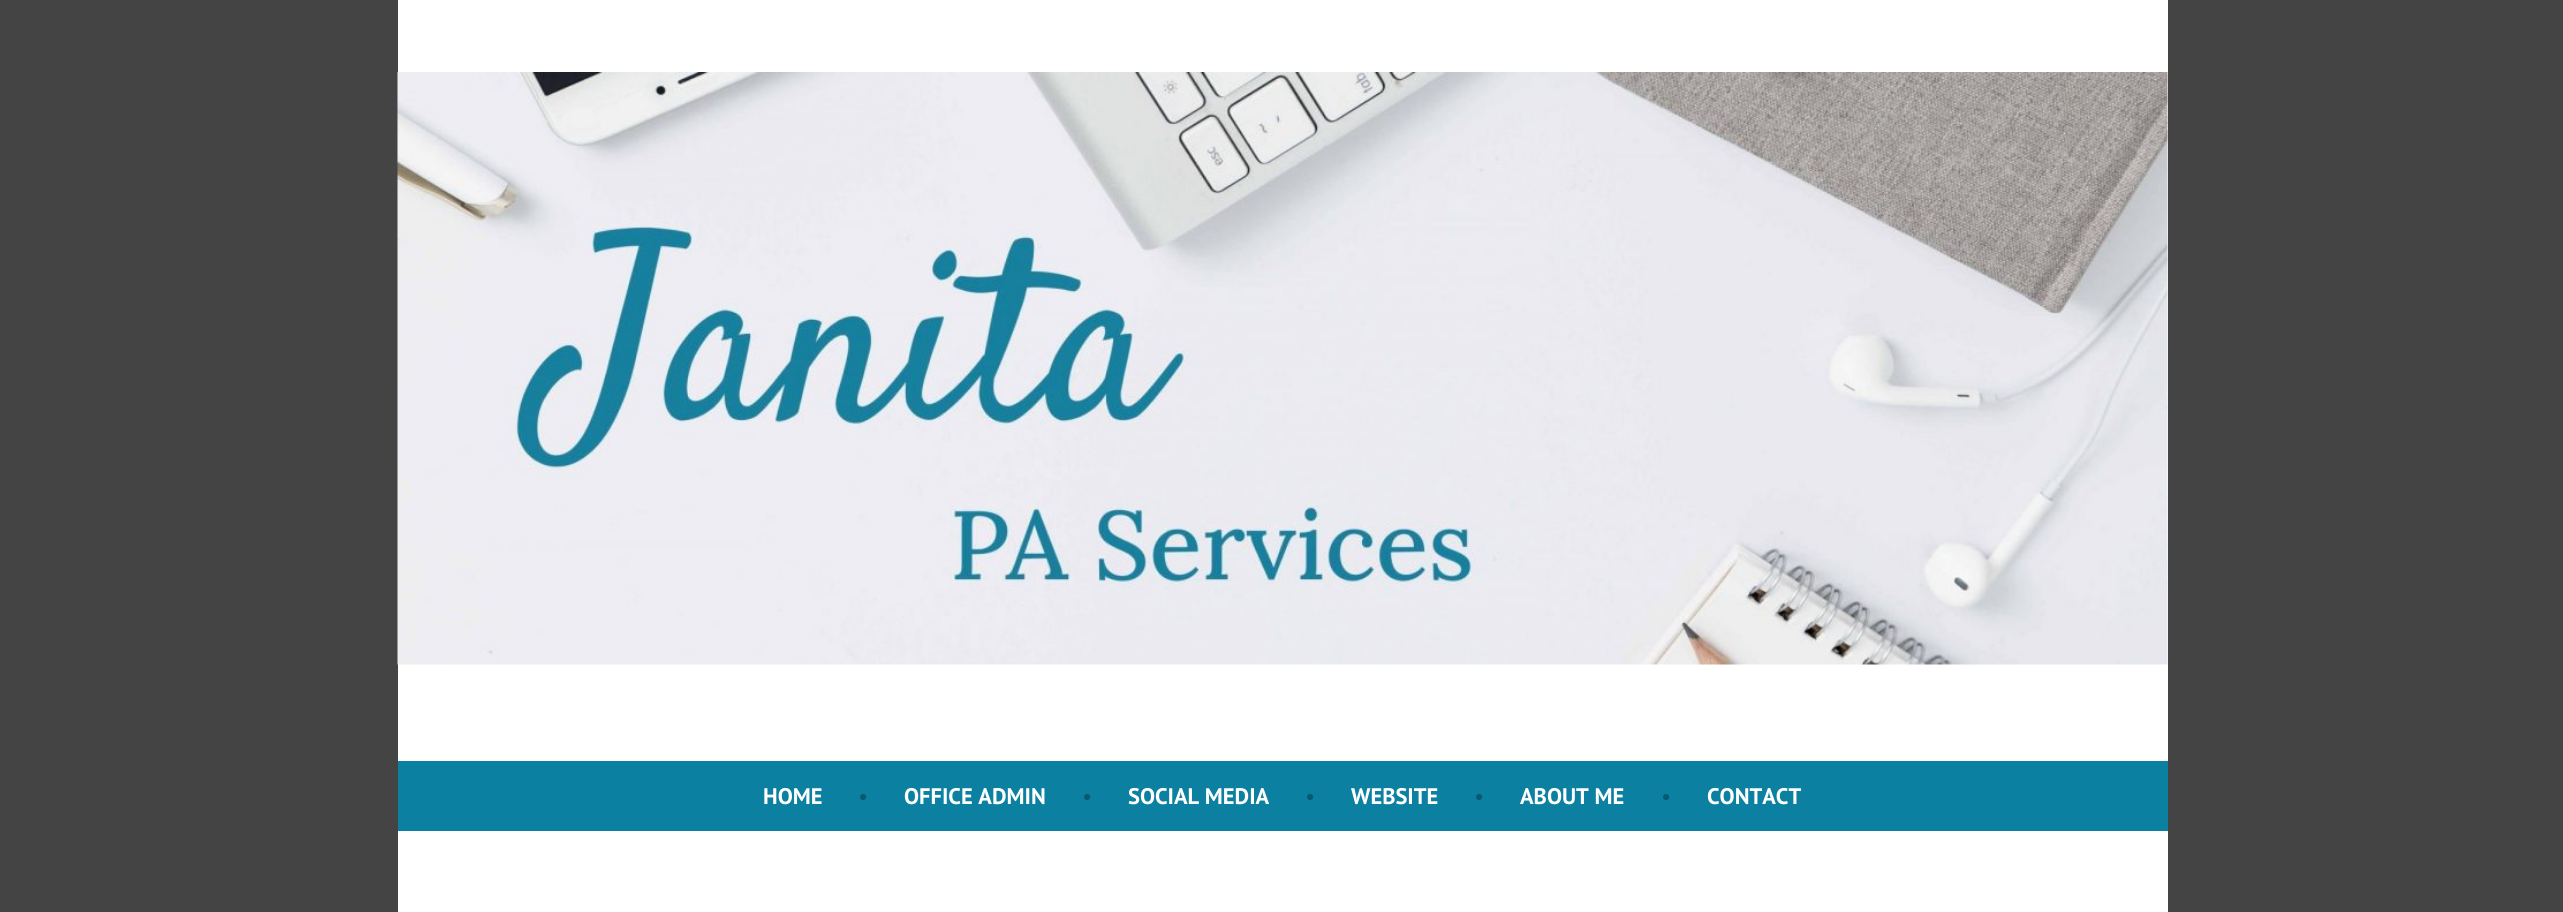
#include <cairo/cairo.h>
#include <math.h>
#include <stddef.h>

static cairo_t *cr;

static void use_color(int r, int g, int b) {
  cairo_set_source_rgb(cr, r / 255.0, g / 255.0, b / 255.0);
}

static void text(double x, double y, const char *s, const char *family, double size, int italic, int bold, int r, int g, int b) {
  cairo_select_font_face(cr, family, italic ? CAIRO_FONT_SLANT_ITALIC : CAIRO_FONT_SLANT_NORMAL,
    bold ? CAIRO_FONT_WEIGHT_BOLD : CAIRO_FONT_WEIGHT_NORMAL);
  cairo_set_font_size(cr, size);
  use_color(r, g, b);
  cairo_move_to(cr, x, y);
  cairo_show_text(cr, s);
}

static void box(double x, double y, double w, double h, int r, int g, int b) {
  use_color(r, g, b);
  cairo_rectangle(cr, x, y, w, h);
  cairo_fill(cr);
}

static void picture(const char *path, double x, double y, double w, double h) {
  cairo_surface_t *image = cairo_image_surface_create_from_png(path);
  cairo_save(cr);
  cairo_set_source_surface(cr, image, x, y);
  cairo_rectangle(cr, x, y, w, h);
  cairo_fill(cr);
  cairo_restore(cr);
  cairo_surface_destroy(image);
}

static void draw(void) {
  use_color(68, 68, 68);
  cairo_paint(cr);
  box(398, 0, 1770, 912, 255, 255, 255);
  picture("img_01.png", 397, 72, 1771, 593);
  box(398, 761, 1770, 70, 12, 128, 161);
  text(763, 804, "HOME", "PT Sans", 22.5, 0, 1, 255, 255, 255);
  text(858, 804, "•", "PT Sans", 22.5, 0, 0, 8, 90, 114);
  text(904, 804, "OFFICE ADMIN", "PT Sans", 22.5, 0, 1, 255, 255, 255);
  text(1082, 804, "•", "PT Sans", 22.5, 0, 0, 8, 90, 114);
  text(1128, 804, "SOCIAL MEDIA", "PT Sans", 22.5, 0, 1, 255, 255, 255);
  text(1305, 804, "•", "PT Sans", 22.5, 0, 0, 8, 90, 114);
  text(1351, 804, "WEBSITE", "PT Sans", 22.5, 0, 1, 255, 255, 255);
  text(1474, 804, "•", "PT Sans", 22.5, 0, 0, 8, 90, 114);
  text(1520, 804, "ABOUT ME", "PT Sans", 22.5, 0, 1, 255, 255, 255);
  text(1661, 804, "•", "PT Sans", 22.5, 0, 0, 8, 90, 114);
  text(1707, 804, "CONTACT", "PT Sans", 22.5, 0, 1, 255, 255, 255);
}

int main(void) {
  cairo_surface_t *surface = cairo_image_surface_create(CAIRO_FORMAT_RGB24, 2563, 912);
  cr = cairo_create(surface);
  cairo_font_options_t *options = cairo_font_options_create();
  cairo_font_options_set_hint_metrics(options, CAIRO_HINT_METRICS_OFF);
  cairo_font_options_set_hint_style(options, CAIRO_HINT_STYLE_NONE);
  cairo_set_font_options(cr, options);
  cairo_set_miter_limit(cr, 4);
  draw();
  cairo_surface_write_to_png(surface, "out.png");
  cairo_font_options_destroy(options);
  cairo_destroy(cr);
  cairo_surface_destroy(surface);
  return 0;
}
